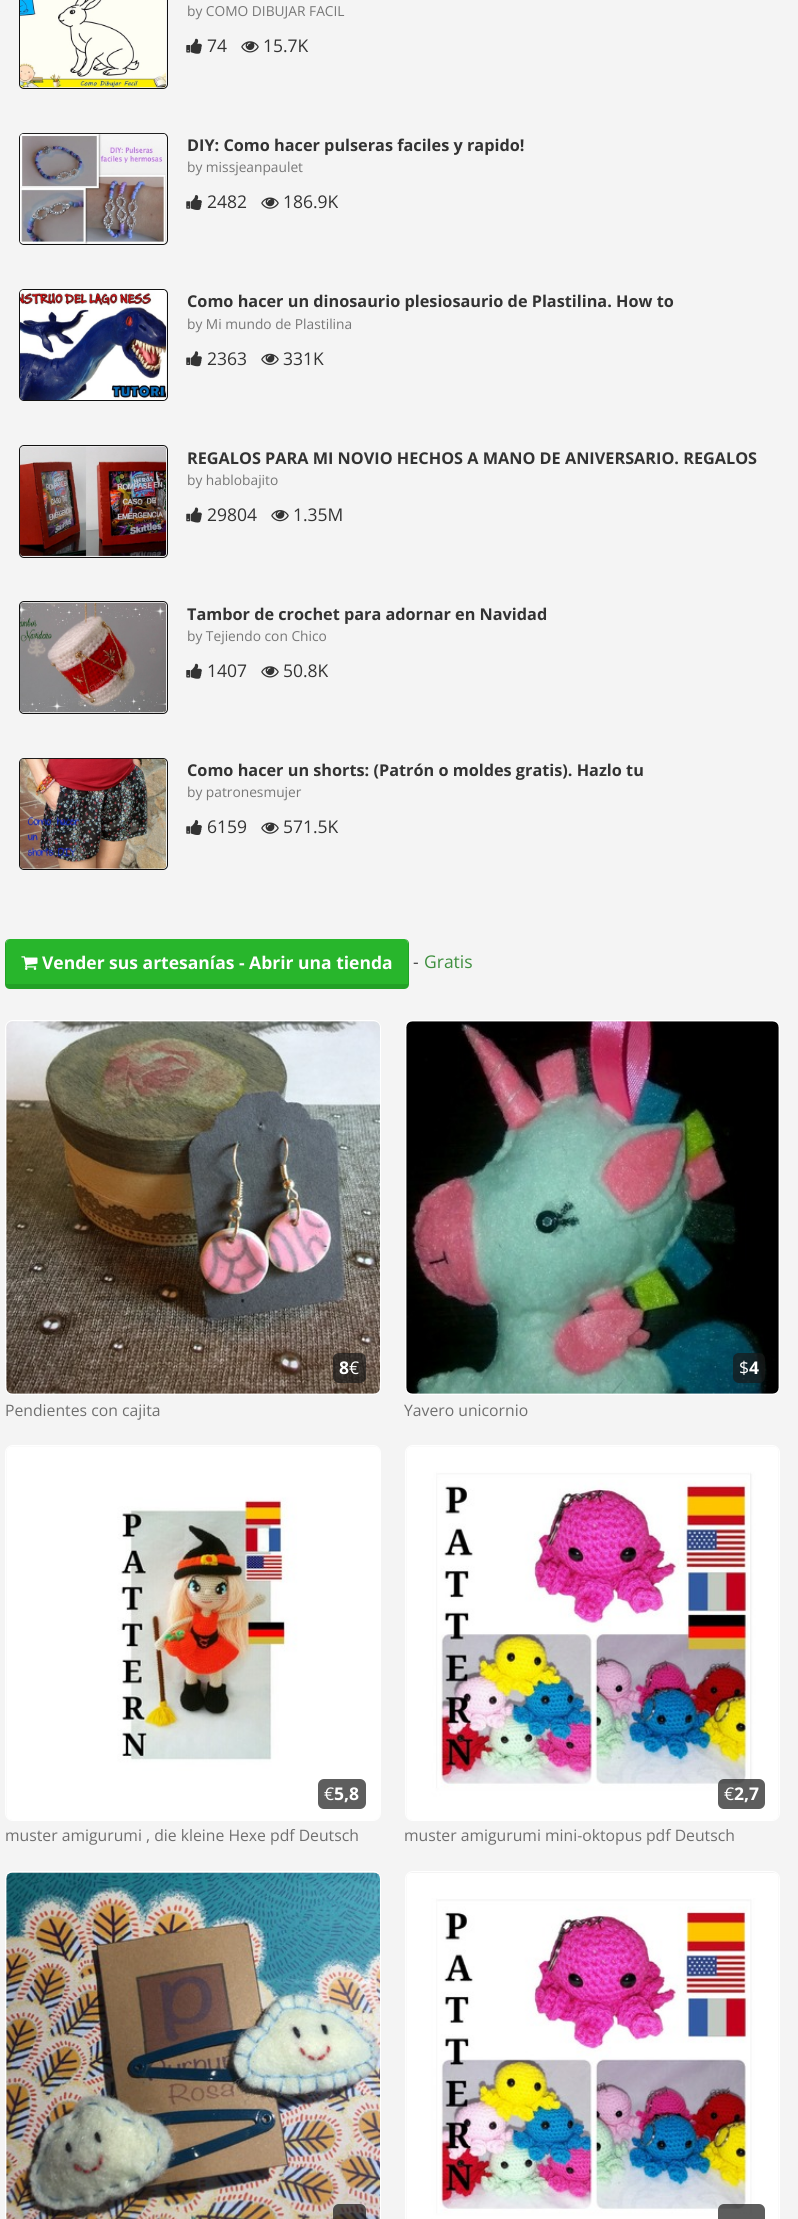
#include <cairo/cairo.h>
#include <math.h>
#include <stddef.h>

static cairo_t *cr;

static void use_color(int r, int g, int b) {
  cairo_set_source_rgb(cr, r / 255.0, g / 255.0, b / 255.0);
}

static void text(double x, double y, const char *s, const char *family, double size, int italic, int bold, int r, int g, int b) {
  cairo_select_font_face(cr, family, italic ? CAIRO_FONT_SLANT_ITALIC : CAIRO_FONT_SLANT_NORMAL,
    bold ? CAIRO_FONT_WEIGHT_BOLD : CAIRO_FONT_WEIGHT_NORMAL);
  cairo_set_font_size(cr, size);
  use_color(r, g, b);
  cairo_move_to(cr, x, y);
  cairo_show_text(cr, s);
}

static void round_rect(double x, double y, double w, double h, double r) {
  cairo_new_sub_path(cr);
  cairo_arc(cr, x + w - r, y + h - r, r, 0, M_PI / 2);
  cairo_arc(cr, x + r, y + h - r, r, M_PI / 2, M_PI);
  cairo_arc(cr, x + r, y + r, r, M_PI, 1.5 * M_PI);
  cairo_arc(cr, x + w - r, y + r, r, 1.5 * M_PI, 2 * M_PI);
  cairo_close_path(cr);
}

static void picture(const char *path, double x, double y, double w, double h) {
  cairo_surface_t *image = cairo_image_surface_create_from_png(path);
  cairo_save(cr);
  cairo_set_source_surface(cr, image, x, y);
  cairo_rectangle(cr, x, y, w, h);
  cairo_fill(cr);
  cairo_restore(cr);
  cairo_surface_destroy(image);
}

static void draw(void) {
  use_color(244, 244, 244);
  cairo_paint(cr);
  round_rect(19.5, -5.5, 148, 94, 4.5);
  use_color(17, 17, 17);
  cairo_set_line_width(cr, 1);
  cairo_stroke(cr);
  picture("img_01.png", 20, 0, 147, 88);
  picture("img_02.png", 186, 38, 16, 16);
  picture("img_03.png", 241, 41, 18, 12);
  round_rect(19.5, 133.5, 148, 111, 4.5);
  cairo_stroke(cr);
  picture("img_04.png", 20, 133, 146, 111);
  picture("img_05.png", 186, 195, 16, 15);
  picture("img_06.png", 261, 197, 18, 12);
  round_rect(19.5, 289.5, 148, 111, 4.5);
  cairo_stroke(cr);
  picture("img_07.png", 20, 290, 147, 110);
  picture("img_08.png", 186, 351, 16, 16);
  picture("img_09.png", 261, 353, 18, 12);
  round_rect(19.5, 445.5, 148, 112, 4.5);
  cairo_stroke(cr);
  picture("img_10.png", 20, 446, 147, 111);
  picture("img_11.png", 186, 507, 16, 16);
  picture("img_12.png", 271, 510, 18, 12);
  round_rect(19.5, 601.5, 148, 112, 4.5);
  cairo_stroke(cr);
  picture("img_13.png", 20, 602, 147, 111);
  picture("img_02.png", 186, 663, 16, 16);
  picture("img_03.png", 261, 666, 18, 12);
  round_rect(19.5, 758.5, 148, 111, 4.5);
  cairo_stroke(cr);
  picture("img_14.png", 20, 758, 147, 111);
  picture("img_05.png", 186, 820, 16, 15);
  picture("img_06.png", 261, 822, 18, 12);
  use_color(40, 182, 44);
  cairo_new_path(cr);
  cairo_move_to(cr, 10, 939);
  cairo_line_to(cr, 404, 939);
  cairo_curve_to(cr, 406, 939, 408, 941, 408, 944);
  cairo_line_to(cr, 408, 984);
  cairo_line_to(cr, 6, 984);
  cairo_line_to(cr, 6, 944);
  cairo_curve_to(cr, 6, 941, 8, 939, 10, 939);
  cairo_close_path(cr);
  cairo_fill(cr);
  use_color(35, 161, 39);
  cairo_set_fill_rule(cr, CAIRO_FILL_RULE_EVEN_ODD);
  cairo_new_path(cr);
  cairo_move_to(cr, 10, 939);
  cairo_line_to(cr, 404, 939);
  cairo_curve_to(cr, 407, 939, 409, 941, 409, 944);
  cairo_line_to(cr, 409, 984);
  cairo_curve_to(cr, 409, 987, 407, 989, 404, 989);
  cairo_line_to(cr, 10, 989);
  cairo_curve_to(cr, 7, 989, 5, 987, 5, 984);
  cairo_line_to(cr, 5, 944);
  cairo_curve_to(cr, 5, 941, 7, 939, 10, 939);
  cairo_close_path(cr);
  cairo_move_to(cr, 10, 939);
  cairo_line_to(cr, 404, 939);
  cairo_curve_to(cr, 406, 939, 408, 941, 408, 944);
  cairo_line_to(cr, 408, 984);
  cairo_line_to(cr, 6, 984);
  cairo_line_to(cr, 6, 944);
  cairo_curve_to(cr, 6, 941, 8, 939, 10, 939);
  cairo_close_path(cr);
  cairo_fill(cr);
  picture("img_15.png", 21, 956, 17, 14);
  round_rect(5.5, 1020.5, 375, 374, 7.5);
  use_color(255, 255, 255);
  cairo_stroke(cr);
  picture("img_16.png", 6, 1021, 374, 373);
  cairo_set_source_rgba(cr, 0.098, 0.098, 0.098, 0.7);
  round_rect(333, 1353, 33, 30, 6);
  cairo_fill(cr);
  round_rect(405.5, 1020.5, 374, 374, 7.5);
  use_color(255, 255, 255);
  cairo_stroke(cr);
  picture("img_17.png", 406, 1021, 373, 373);
  cairo_set_source_rgba(cr, 0.098, 0.098, 0.098, 0.7);
  round_rect(733, 1353, 32, 30, 6);
  cairo_fill(cr);
  round_rect(5.5, 1445.5, 375, 375, 7.5);
  use_color(255, 255, 255);
  cairo_stroke(cr);
  picture("img_18.png", 6, 1446, 374, 374);
  use_color(94, 94, 94);
  round_rect(318, 1779, 48, 30, 6);
  cairo_fill(cr);
  round_rect(405.5, 1445.5, 374, 375, 7.5);
  use_color(255, 255, 255);
  cairo_stroke(cr);
  picture("img_19.png", 406, 1446, 373, 374);
  cairo_set_source_rgba(cr, 0.098, 0.098, 0.098, 0.7);
  round_rect(718, 1779, 47, 30, 6);
  cairo_fill(cr);
  round_rect(5.5, 1871.5, 375, 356, 7.5);
  use_color(255, 255, 255);
  cairo_stroke(cr);
  picture("img_20.png", 6, 1872, 374, 347);
  cairo_set_source_rgba(cr, 0.098, 0.098, 0.098, 0.7);
  round_rect(333, 2204, 33, 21, 6);
  cairo_fill(cr);
  round_rect(405.5, 1871.5, 374, 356, 7.5);
  use_color(255, 255, 255);
  cairo_stroke(cr);
  picture("img_21.png", 406, 1873, 373, 346);
  cairo_set_source_rgba(cr, 0.098, 0.098, 0.098, 0.7);
  round_rect(718, 2204, 47, 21, 6);
  cairo_fill(cr);
  text(187, 16, "by COMO DIBUJAR FACIL", "Open Sans", 13.75, 0, 0, 119, 119, 119);
  text(207, 52, "74", "Open Sans", 17.5, 0, 0, 51, 51, 51);
  text(263, 52, "15.7K", "Open Sans", 17.5, 0, 0, 51, 51, 51);
  text(187, 151, "DIY: Como hacer pulseras faciles y rapido!", "Open Sans", 16.25, 0, 1, 51, 51, 51);
  text(187, 172, "by missjeanpaulet", "Open Sans", 13.75, 0, 0, 119, 119, 119);
  text(207, 208, "2482", "Open Sans", 17.5, 0, 0, 51, 51, 51);
  text(283, 208, "186.9K", "Open Sans", 17.5, 0, 0, 51, 51, 51);
  text(187, 307, "Como hacer un dinosaurio plesiosaurio de Plastilina. How to", "Open Sans", 16.25, 0, 1, 51, 51, 51);
  text(187, 329, "by Mi mundo de Plastilina", "Open Sans", 13.75, 0, 0, 119, 119, 119);
  text(207, 365, "2363", "Open Sans", 17.5, 0, 0, 51, 51, 51);
  text(283, 365, "331K", "Open Sans", 17.5, 0, 0, 51, 51, 51);
  text(187, 464, "REGALOS PARA MI NOVIO HECHOS A MANO DE ANIVERSARIO. REGALOS", "Open Sans", 16.25, 0, 1, 51, 51, 51);
  text(187, 485, "by hablobajito", "Open Sans", 13.75, 0, 0, 119, 119, 119);
  text(207, 521, "29804", "Open Sans", 17.5, 0, 0, 51, 51, 51);
  text(293, 521, "1.35M", "Open Sans", 17.5, 0, 0, 51, 51, 51);
  text(187, 620, "Tambor de crochet para adornar en Navidad", "Open Sans", 16.25, 0, 1, 51, 51, 51);
  text(187, 641, "by Tejiendo con Chico", "Open Sans", 13.75, 0, 0, 119, 119, 119);
  text(207, 677, "1407", "Open Sans", 17.5, 0, 0, 51, 51, 51);
  text(283, 677, "50.8K", "Open Sans", 17.5, 0, 0, 51, 51, 51);
  text(187, 776, "Como hacer un shorts: (Patrón o moldes gratis). Hazlo tu", "Open Sans", 16.25, 0, 1, 51, 51, 51);
  text(187, 797, "by patronesmujer", "Open Sans", 13.75, 0, 0, 119, 119, 119);
  text(207, 833, "6159", "Open Sans", 17.5, 0, 0, 51, 51, 51);
  text(283, 833, "571.5K", "Open Sans", 17.5, 0, 0, 51, 51, 51);
  text(42, 969, "Vender sus artesanías - Abrir una tienda", "Open Sans", 17.5, 0, 1, 255, 255, 255);
  text(413, 968, "-", "Open Sans", 17.5, 0, 0, 68, 68, 68);
  text(424, 968, "Gratis", "Open Sans", 17.5, 0, 0, 62, 143, 62);
  text(339, 1374, "8", "Open Sans", 17.5, 0, 1, 255, 255, 255);
  text(349, 1374, "€", "Open Sans", 17.5, 0, 0, 255, 255, 255);
  text(5, 1416, "Pendientes con cajita", "Open Sans", 15.75, 0, 0, 111, 111, 111);
  text(739, 1374, "$", "Open Sans", 17.5, 0, 0, 255, 255, 255);
  text(749, 1374, "4", "Open Sans", 17.5, 0, 1, 255, 255, 255);
  text(404, 1416, "Yavero unicornio", "Open Sans", 15.75, 0, 0, 111, 111, 111);
  text(324, 1800, "€", "Open Sans", 17.5, 0, 0, 255, 255, 255);
  text(334, 1800, "5,8", "Open Sans", 17.5, 0, 1, 255, 255, 255);
  text(5, 1841, "muster amigurumi , die kleine Hexe pdf Deutsch", "Open Sans", 15.75, 0, 0, 111, 111, 111);
  text(724, 1800, "€", "Open Sans", 17.5, 0, 0, 255, 255, 255);
  text(734, 1800, "2,7", "Open Sans", 17.5, 0, 1, 255, 255, 255);
  text(404, 1841, "muster amigurumi mini-oktopus pdf Deutsch", "Open Sans", 15.75, 0, 0, 111, 111, 111);
}

int main(void) {
  cairo_surface_t *surface = cairo_image_surface_create(CAIRO_FORMAT_RGB24, 798, 2219);
  cr = cairo_create(surface);
  cairo_font_options_t *options = cairo_font_options_create();
  cairo_font_options_set_hint_metrics(options, CAIRO_HINT_METRICS_OFF);
  cairo_font_options_set_hint_style(options, CAIRO_HINT_STYLE_NONE);
  cairo_set_font_options(cr, options);
  cairo_set_miter_limit(cr, 4);
  draw();
  cairo_surface_write_to_png(surface, "out.png");
  cairo_font_options_destroy(options);
  cairo_destroy(cr);
  cairo_surface_destroy(surface);
  return 0;
}
